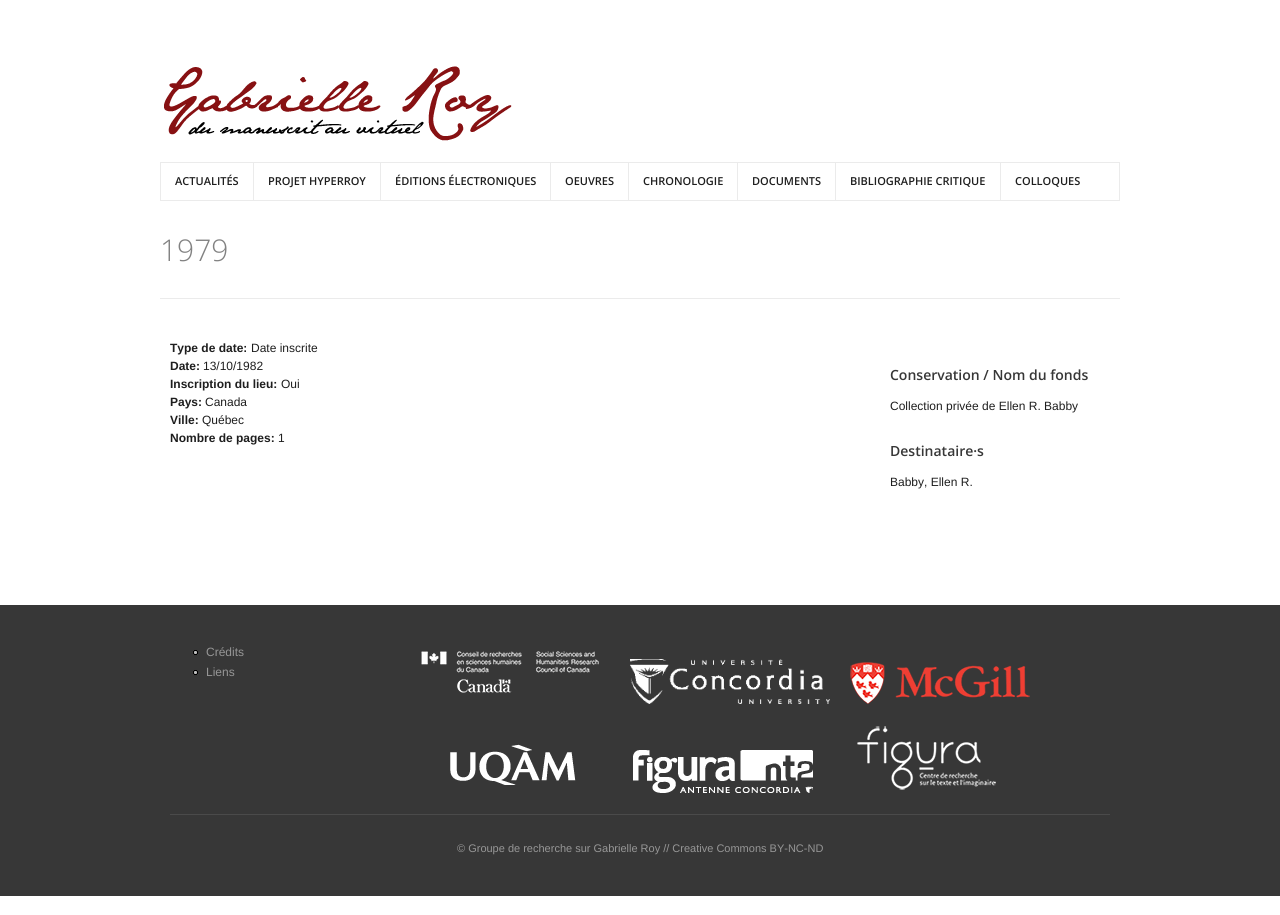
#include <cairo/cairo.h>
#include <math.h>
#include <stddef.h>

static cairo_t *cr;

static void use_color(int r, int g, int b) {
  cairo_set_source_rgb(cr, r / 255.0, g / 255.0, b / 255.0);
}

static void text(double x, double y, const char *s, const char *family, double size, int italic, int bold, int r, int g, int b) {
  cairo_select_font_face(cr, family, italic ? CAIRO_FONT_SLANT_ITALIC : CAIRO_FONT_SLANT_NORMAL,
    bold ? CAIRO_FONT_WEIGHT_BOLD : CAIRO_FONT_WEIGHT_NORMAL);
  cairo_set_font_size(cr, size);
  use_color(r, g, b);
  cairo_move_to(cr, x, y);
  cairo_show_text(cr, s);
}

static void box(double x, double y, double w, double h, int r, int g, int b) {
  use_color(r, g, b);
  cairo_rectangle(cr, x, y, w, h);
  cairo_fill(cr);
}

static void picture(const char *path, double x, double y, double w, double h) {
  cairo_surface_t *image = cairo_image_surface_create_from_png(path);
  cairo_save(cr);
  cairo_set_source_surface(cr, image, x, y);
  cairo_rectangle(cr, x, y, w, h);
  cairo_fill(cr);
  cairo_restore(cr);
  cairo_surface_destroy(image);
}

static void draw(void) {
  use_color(255, 255, 255);
  cairo_paint(cr);
  picture("img_01.png", 164, 66, 348, 75);
  cairo_rectangle(cr, 160.5, 162.5, 959, 38);
  use_color(235, 235, 235);
  cairo_set_line_width(cr, 1);
  cairo_stroke(cr);
  box(253, 163, 1, 37, 235, 235, 235);
  box(380, 163, 1, 37, 235, 235, 235);
  box(550, 163, 1, 37, 235, 235, 235);
  box(628, 163, 1, 37, 235, 235, 235);
  box(737, 163, 1, 37, 235, 235, 235);
  box(835, 163, 1, 37, 235, 235, 235);
  box(1000, 163, 1, 37, 235, 235, 235);
  box(160, 298, 960, 1, 235, 235, 235);
  box(0, 605, 1280, 291, 55, 55, 55);
  picture("img_02.png", 193, 650, 5, 5);
  picture("img_02.png", 193, 670, 5, 5);
  picture("img_03.png", 421, 651, 178, 42);
  picture("img_04.png", 630, 659, 200, 45);
  picture("img_05.png", 850, 662, 180, 42);
  picture("img_06.png", 450, 744, 126, 41);
  picture("img_07.png", 633, 750, 180, 43);
  picture("img_08.png", 857, 726, 139, 64);
  box(170, 814, 940, 1, 74, 74, 74);
  text(175, 185, "ACTUALITÉS", "Open Sans SemiBold", 11, 0, 0, 30, 30, 30);
  text(268, 185, "PROJET HYPERROY", "Open Sans SemiBold", 11, 0, 0, 30, 30, 30);
  text(395, 185, "ÉDITIONS ÉLECTRONIQUES", "Open Sans SemiBold", 11, 0, 0, 30, 30, 30);
  text(565, 185, "OEUVRES", "Open Sans SemiBold", 11, 0, 0, 30, 30, 30);
  text(643, 185, "CHRONOLOGIE", "Open Sans SemiBold", 11, 0, 0, 30, 30, 30);
  text(752, 185, "DOCUMENTS", "Open Sans SemiBold", 11, 0, 0, 30, 30, 30);
  text(850, 185, "BIBLIOGRAPHIE CRITIQUE", "Open Sans SemiBold", 11, 0, 0, 30, 30, 30);
  text(1015, 185, "COLLOQUES", "Open Sans SemiBold", 11, 0, 0, 30, 30, 30);
  text(160, 261, "1979", "Open Sans Light", 30, 0, 0, 130, 130, 130);
  text(170, 352, "Type de date:", "Liberation Sans", 12, 0, 1, 30, 30, 30);
  text(251, 352, "Date inscrite", "Liberation Sans", 12, 0, 0, 30, 30, 30);
  text(170, 370, "Date:", "Liberation Sans", 12, 0, 1, 30, 30, 30);
  text(203, 370, "13/10/1982", "Liberation Sans", 12, 0, 0, 30, 30, 30);
  text(170, 388, "Inscription du lieu:", "Liberation Sans", 12, 0, 1, 30, 30, 30);
  text(281, 388, "Oui", "Liberation Sans", 12, 0, 0, 30, 30, 30);
  text(170, 406, "Pays:", "Liberation Sans", 12, 0, 1, 30, 30, 30);
  text(205, 406, "Canada", "Liberation Sans", 12, 0, 0, 30, 30, 30);
  text(170, 424, "Ville:", "Liberation Sans", 12, 0, 1, 30, 30, 30);
  text(202, 424, "Québec", "Liberation Sans", 12, 0, 0, 30, 30, 30);
  text(170, 442, "Nombre de pages:", "Liberation Sans", 12, 0, 1, 30, 30, 30);
  text(278, 442, "1", "Liberation Sans", 12, 0, 0, 30, 30, 30);
  text(890, 380, "Conservation / Nom du fonds", "Open Sans SemiBold", 14, 0, 0, 55, 55, 55);
  text(890, 410, "Collection privée de Ellen R. Babby", "Liberation Sans", 12, 0, 0, 30, 30, 30);
  text(890, 456, "Destinataire·s", "Open Sans SemiBold", 14, 0, 0, 55, 55, 55);
  text(890, 486, "Babby, Ellen R.", "Liberation Sans", 12, 0, 0, 30, 30, 30);
  text(206, 656, "Crédits", "Liberation Sans", 12, 0, 0, 150, 150, 150);
  text(206, 676, "Liens", "Liberation Sans", 12, 0, 0, 150, 150, 150);
  text(457, 852, "© Groupe de recherche sur Gabrielle Roy // Creative Commons BY-NC-ND", "Liberation Sans", 11, 0, 0, 150, 150, 150);
}

int main(void) {
  cairo_surface_t *surface = cairo_image_surface_create(CAIRO_FORMAT_RGB24, 1280, 915);
  cr = cairo_create(surface);
  cairo_font_options_t *options = cairo_font_options_create();
  cairo_font_options_set_hint_metrics(options, CAIRO_HINT_METRICS_OFF);
  cairo_font_options_set_hint_style(options, CAIRO_HINT_STYLE_NONE);
  cairo_set_font_options(cr, options);
  cairo_set_miter_limit(cr, 4);
  draw();
  cairo_surface_write_to_png(surface, "out.png");
  cairo_font_options_destroy(options);
  cairo_destroy(cr);
  cairo_surface_destroy(surface);
  return 0;
}
